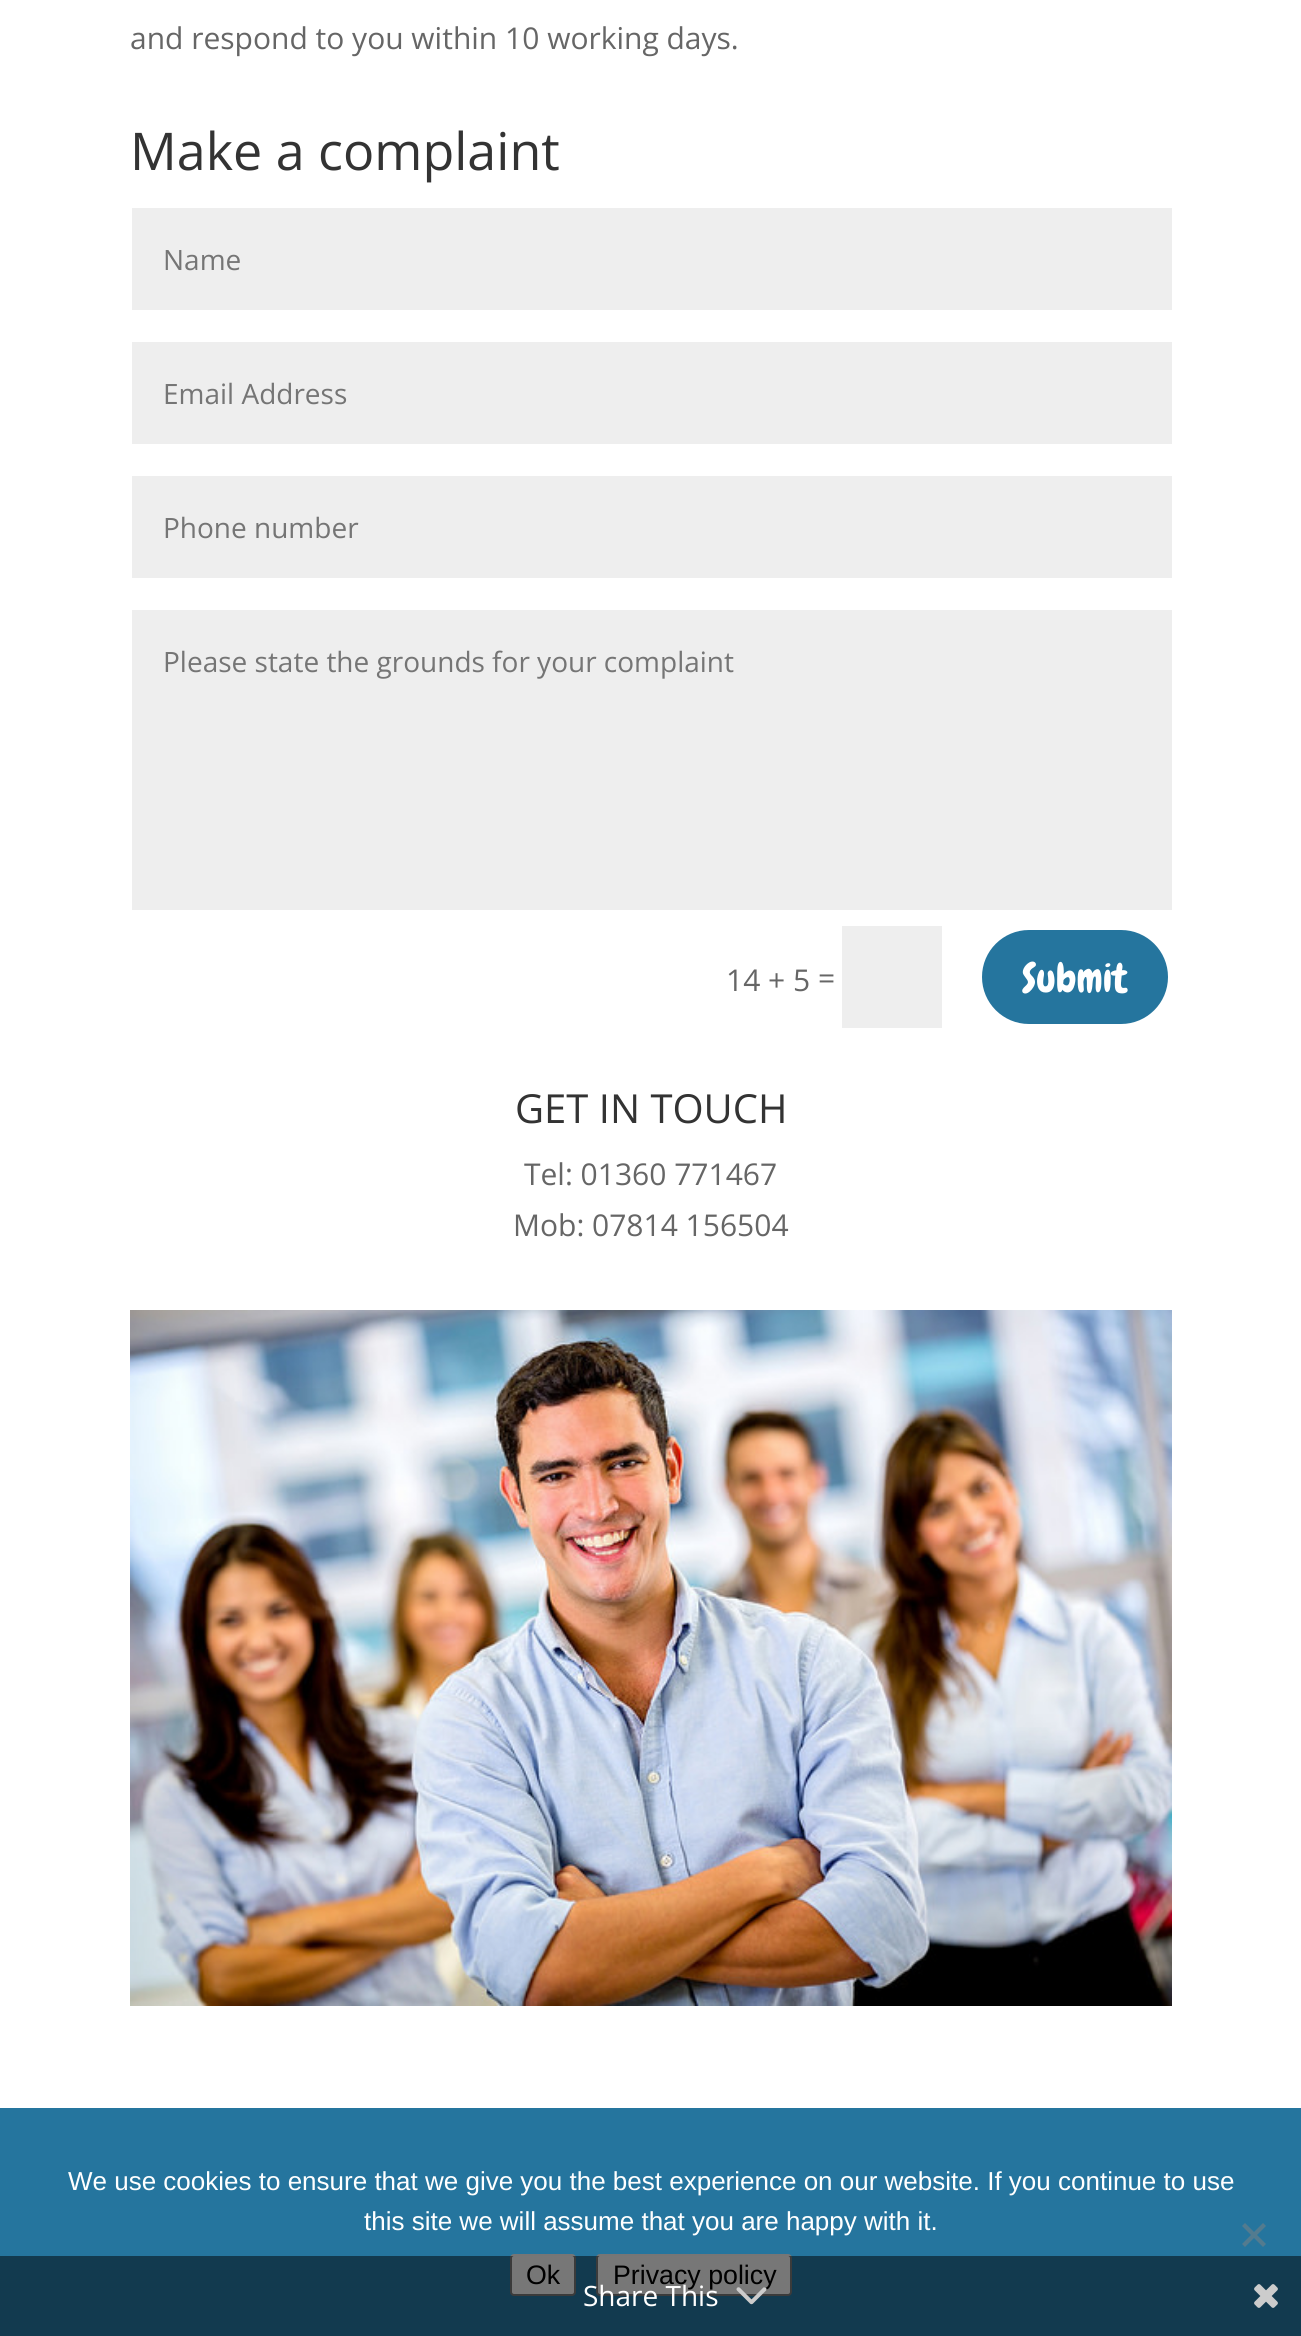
#include <cairo/cairo.h>
#include <math.h>
#include <stddef.h>

static cairo_t *cr;

static void use_color(int r, int g, int b) {
  cairo_set_source_rgb(cr, r / 255.0, g / 255.0, b / 255.0);
}

static void text(double x, double y, const char *s, const char *family, double size, int italic, int bold, int r, int g, int b) {
  cairo_select_font_face(cr, family, italic ? CAIRO_FONT_SLANT_ITALIC : CAIRO_FONT_SLANT_NORMAL,
    bold ? CAIRO_FONT_WEIGHT_BOLD : CAIRO_FONT_WEIGHT_NORMAL);
  cairo_set_font_size(cr, size);
  use_color(r, g, b);
  cairo_move_to(cr, x, y);
  cairo_show_text(cr, s);
}

static void box(double x, double y, double w, double h, int r, int g, int b) {
  use_color(r, g, b);
  cairo_rectangle(cr, x, y, w, h);
  cairo_fill(cr);
}

static void round_rect(double x, double y, double w, double h, double r) {
  cairo_new_sub_path(cr);
  cairo_arc(cr, x + w - r, y + h - r, r, 0, M_PI / 2);
  cairo_arc(cr, x + r, y + h - r, r, M_PI / 2, M_PI);
  cairo_arc(cr, x + r, y + r, r, M_PI, 1.5 * M_PI);
  cairo_arc(cr, x + w - r, y + r, r, 1.5 * M_PI, 2 * M_PI);
  cairo_close_path(cr);
}

static void picture(const char *path, double x, double y, double w, double h) {
  cairo_surface_t *image = cairo_image_surface_create_from_png(path);
  cairo_save(cr);
  cairo_set_source_surface(cr, image, x, y);
  cairo_rectangle(cr, x, y, w, h);
  cairo_fill(cr);
  cairo_restore(cr);
  cairo_surface_destroy(image);
}

static void draw(void) {
  use_color(255, 255, 255);
  cairo_paint(cr);
  box(132, 208, 1040, 102, 238, 238, 238);
  box(132, 342, 1040, 102, 238, 238, 238);
  box(132, 476, 1040, 102, 238, 238, 238);
  box(132, 610, 1040, 300, 238, 238, 238);
  box(842, 926, 100, 102, 238, 238, 238);
  use_color(37, 117, 158);
  round_rect(980, 928, 190, 98, 49);
  cairo_fill_preserve(cr);
  use_color(255, 255, 255);
  cairo_set_line_width(cr, 4);
  cairo_stroke(cr);
  picture("img_01.png", 130, 1310, 1042, 696);
  box(0, 2108, 1301, 228, 37, 117, 158);
  use_color(83, 123, 143);
  cairo_new_path(cr);
  cairo_move_to(cr, 1263, 2223);
  cairo_line_to(cr, 1266, 2226);
  cairo_line_to(cr, 1245, 2247);
  cairo_line_to(cr, 1242, 2244);
  cairo_close_path(cr);
  cairo_fill(cr);
  cairo_new_path(cr);
  cairo_move_to(cr, 1242, 2226);
  cairo_line_to(cr, 1245, 2223);
  cairo_line_to(cr, 1266, 2244);
  cairo_line_to(cr, 1263, 2247);
  cairo_close_path(cr);
  cairo_fill(cr);
  use_color(239, 239, 239);
  round_rect(511, 2255, 64, 40, 3);
  cairo_fill_preserve(cr);
  use_color(118, 118, 118);
  cairo_set_line_width(cr, 2);
  cairo_stroke(cr);
  use_color(239, 239, 239);
  round_rect(597, 2255, 194, 40, 3);
  cairo_fill_preserve(cr);
  use_color(118, 118, 118);
  cairo_stroke(cr);
  text(130, 49, "and respond to you within 10 working days.", "Open Sans", 30, 0, 0, 102, 102, 102);
  text(130, 170, "Make a complaint", "Open Sans", 52, 0, 0, 51, 51, 51);
  text(163, 270, "Name", "Open Sans", 28, 0, 0, 117, 117, 117);
  text(163, 404, "Email Address", "Open Sans", 28, 0, 0, 117, 117, 117);
  text(163, 538, "Phone number", "Open Sans", 28, 0, 0, 117, 117, 117);
  text(163, 672, "Please state the grounds for your complaint", "Open Sans", 28, 0, 0, 117, 117, 117);
  text(726, 991, "14 + 5", "Open Sans", 30, 0, 0, 102, 102, 102);
  text(818, 989, "=", "Open Sans", 30, 0, 0, 102, 102, 102);
  text(1022, 992, "Submit", "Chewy", 40, 0, 0, 255, 255, 255);
  text(515, 1123, "GET IN TOUCH", "Open Sans", 40, 0, 0, 51, 51, 51);
  text(524, 1185, "Tel: 01360 771467", "Open Sans", 30, 0, 0, 102, 102, 102);
  text(513, 1236, "Mob: 07814 156504", "Open Sans", 30, 0, 0, 102, 102, 102);
  text(68, 2190, "We use cookies to ensure that we give you the best experience on our website. If you continue to use", "Liberation Sans", 26, 0, 0, 255, 255, 255);
  text(364, 2230, "this site we will assume that you are happy with it.", "Liberation Sans", 26, 0, 0, 255, 255, 255);
  text(526, 2284, "Ok", "Liberation Sans", 26.75, 0, 0, 0, 0, 0);
  text(613, 2284, "Privacy policy", "Liberation Sans", 26.75, 0, 0, 0, 0, 0);
  cairo_set_source_rgba(cr, 0, 0, 0, 0.5);
  cairo_rectangle(cr, 0, 2256, 1301, 80);
  cairo_fill(cr);
  text(583, 2306, "Share This", "Open Sans", 28, 0, 0, 255, 255, 255);
  picture("img_02.png", 736, 2287, 31, 18);
  picture("img_03.png", 1254, 2284, 24, 24);
}

int main(void) {
  cairo_surface_t *surface = cairo_image_surface_create(CAIRO_FORMAT_RGB24, 1301, 2336);
  cr = cairo_create(surface);
  cairo_font_options_t *options = cairo_font_options_create();
  cairo_font_options_set_hint_metrics(options, CAIRO_HINT_METRICS_OFF);
  cairo_font_options_set_hint_style(options, CAIRO_HINT_STYLE_NONE);
  cairo_set_font_options(cr, options);
  cairo_set_miter_limit(cr, 4);
  draw();
  cairo_surface_write_to_png(surface, "out.png");
  cairo_font_options_destroy(options);
  cairo_destroy(cr);
  cairo_surface_destroy(surface);
  return 0;
}
